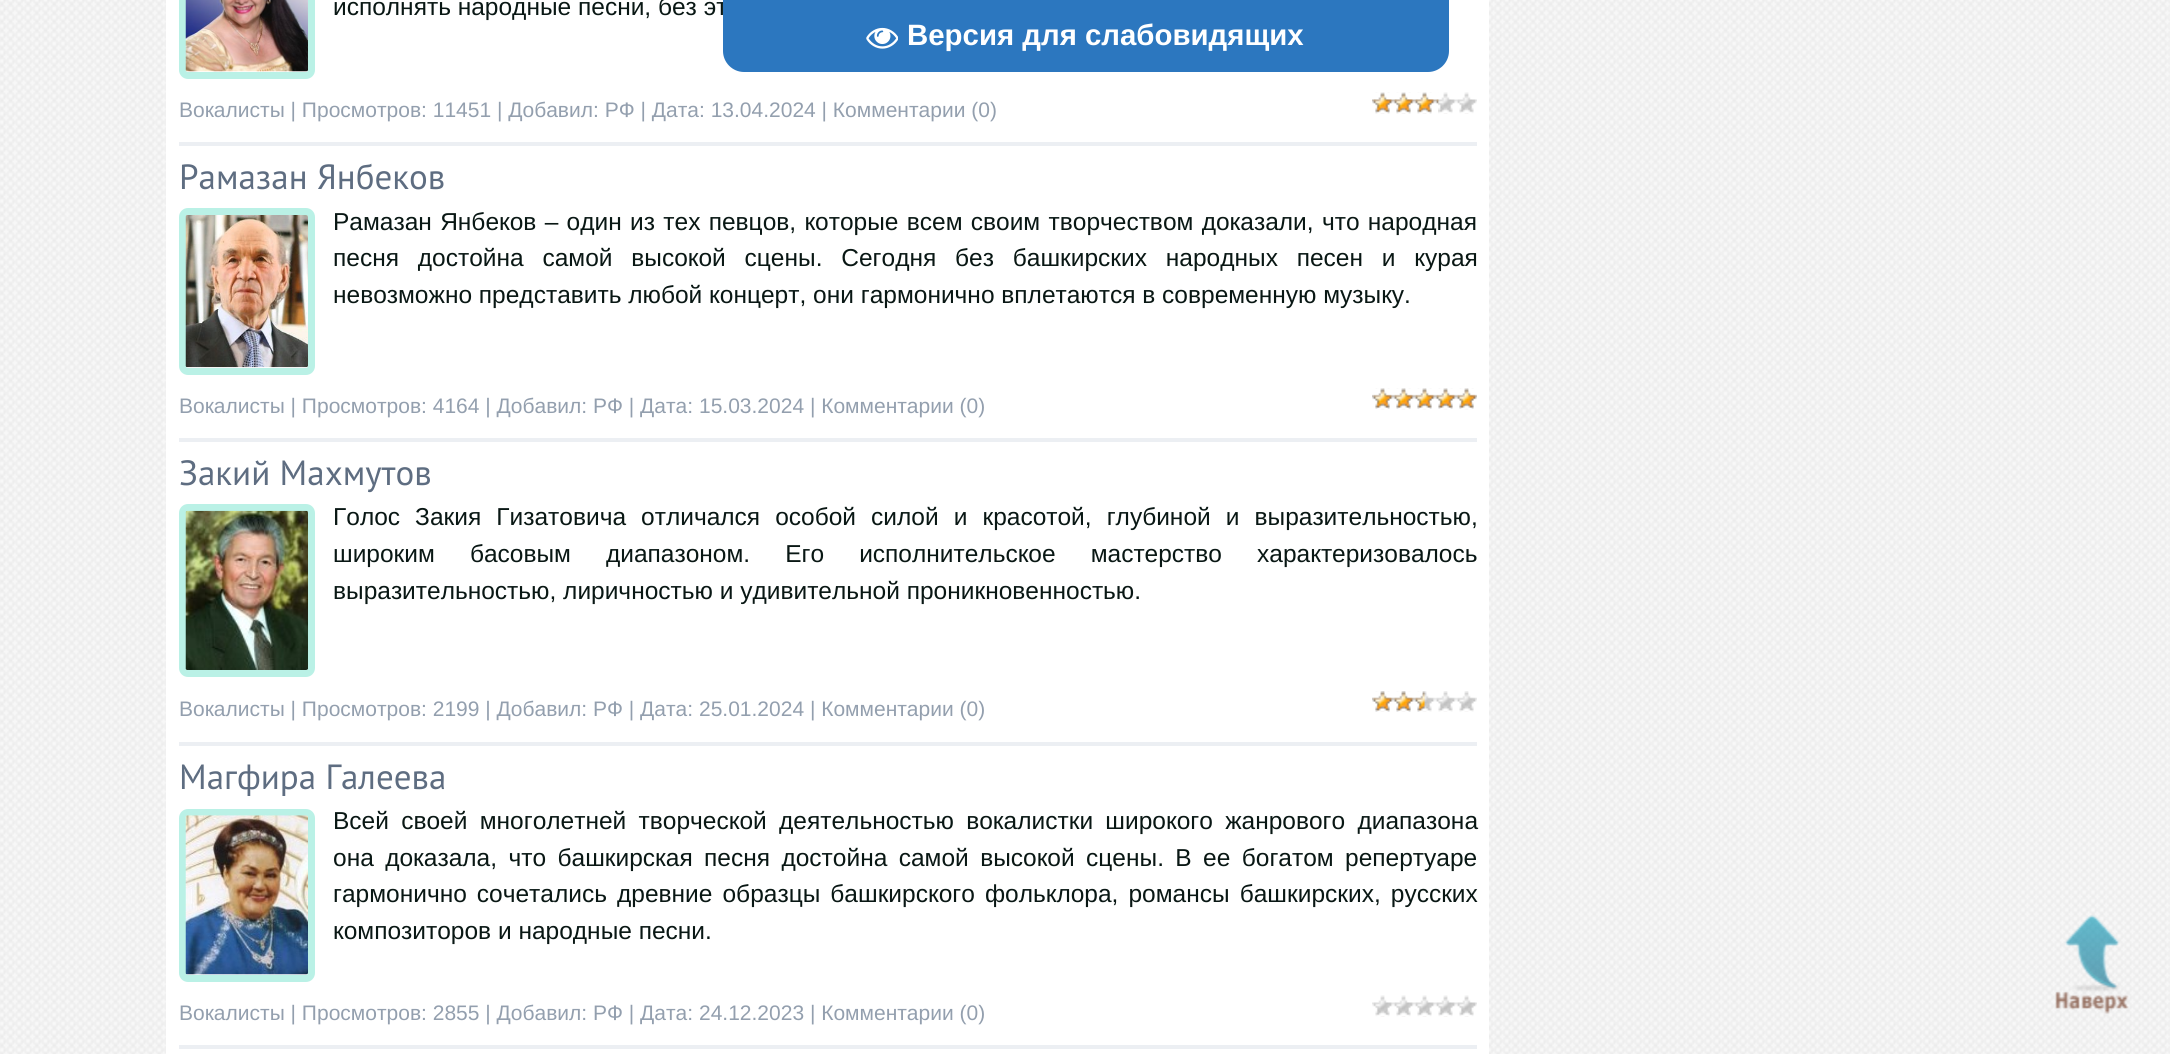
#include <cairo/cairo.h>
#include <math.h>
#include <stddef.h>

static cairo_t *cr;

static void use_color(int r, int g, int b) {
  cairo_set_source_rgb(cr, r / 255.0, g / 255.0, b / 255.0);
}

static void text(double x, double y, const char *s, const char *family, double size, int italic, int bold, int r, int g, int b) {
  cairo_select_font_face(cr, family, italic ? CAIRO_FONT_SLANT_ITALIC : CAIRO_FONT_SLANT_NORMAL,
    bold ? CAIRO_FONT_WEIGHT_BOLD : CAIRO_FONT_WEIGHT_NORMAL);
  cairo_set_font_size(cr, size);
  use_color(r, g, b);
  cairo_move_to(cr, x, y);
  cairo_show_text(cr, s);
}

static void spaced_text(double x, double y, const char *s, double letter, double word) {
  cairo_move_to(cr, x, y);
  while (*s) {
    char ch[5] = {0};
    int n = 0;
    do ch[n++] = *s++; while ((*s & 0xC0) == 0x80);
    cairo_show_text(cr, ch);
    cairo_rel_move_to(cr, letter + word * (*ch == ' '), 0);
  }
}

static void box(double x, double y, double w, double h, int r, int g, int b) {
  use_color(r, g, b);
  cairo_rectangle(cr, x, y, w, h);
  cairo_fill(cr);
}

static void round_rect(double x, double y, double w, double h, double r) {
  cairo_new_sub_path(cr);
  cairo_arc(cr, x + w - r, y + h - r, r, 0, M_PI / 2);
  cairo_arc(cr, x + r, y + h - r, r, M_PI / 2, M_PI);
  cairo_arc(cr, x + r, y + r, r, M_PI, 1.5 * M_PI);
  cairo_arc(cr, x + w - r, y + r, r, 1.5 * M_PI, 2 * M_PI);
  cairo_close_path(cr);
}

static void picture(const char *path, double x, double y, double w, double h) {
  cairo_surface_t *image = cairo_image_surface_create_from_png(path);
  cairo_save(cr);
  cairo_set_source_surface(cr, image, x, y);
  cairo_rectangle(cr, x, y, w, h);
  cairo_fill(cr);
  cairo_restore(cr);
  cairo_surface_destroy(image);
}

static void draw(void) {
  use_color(255, 255, 255);
  cairo_paint(cr);
  picture("img_01.png", 0, 0, 2170, 1054);
  box(166, 0, 1323, 1054, 255, 255, 255);
  box(179, 142, 1298, 4, 236, 239, 243);
  round_rect(182.5, -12.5, 129, 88, 5.5);
  use_color(186, 241, 230);
  cairo_set_line_width(cr, 7);
  cairo_stroke(cr);
  picture("img_02.png", 185, 0, 123, 72);
  picture("img_03.png", 1372, 92, 105, 22);
  picture("img_04.png", 1372, 92, 67, 22);
  box(179, 438, 1298, 4, 236, 239, 243);
  round_rect(182.5, 211.5, 129, 160, 5.5);
  use_color(186, 241, 230);
  cairo_stroke(cr);
  picture("img_05.png", 185, 215, 123, 153);
  picture("img_06.png", 1372, 388, 105, 22);
  picture("img_07.png", 1372, 388, 105, 21);
  box(179, 742, 1298, 4, 236, 239, 243);
  round_rect(182.5, 507.5, 129, 166, 5.5);
  use_color(186, 241, 230);
  cairo_stroke(cr);
  picture("img_08.png", 185, 510, 123, 160);
  picture("img_09.png", 1372, 691, 105, 21);
  picture("img_10.png", 1372, 691, 53, 21);
  box(179, 1045, 1298, 4, 236, 239, 243);
  round_rect(182.5, 812.5, 129, 166, 5.5);
  use_color(186, 241, 230);
  cairo_stroke(cr);
  picture("img_11.png", 185, 815, 123, 160);
  picture("img_12.png", 1372, 995, 105, 22);
  picture("img_14.png", 2055, 915, 74, 99);
  text(333, 15, "исполнять народные песни, без эт", "Liberation Sans", 24.5, 0, 0, 9, 23, 20);
  text(179, 117, "Вокалисты | Просмотров: 11451 | Добавил: РФ | Дата: 13.04.2024 | Комментарии (0)", "Liberation Sans", 21, 0, 0, 147, 159, 174);
  text(179, 189, "Рамазан Янбеков", "PT Sans", 35, 0, 0, 94, 109, 129);
  cairo_select_font_face(cr, "Liberation Sans", CAIRO_FONT_SLANT_NORMAL, CAIRO_FONT_WEIGHT_NORMAL);
  cairo_set_font_size(cr, 24.5);
  use_color(9, 23, 20);
  spaced_text(333, 230, "Рамазан Янбеков – один из тех певцов, которые всем своим творчеством доказали, что народная", 0, 1.5);
  spaced_text(333, 266, "песня достойна самой высокой сцены. Сегодня без башкирских народных песен и курая", 0, 12);
  text(333, 303, "невозможно представить любой концерт, они гармонично вплетаются в современную музыку.", "Liberation Sans", 24.5, 0, 0, 9, 23, 20);
  text(179, 413, "Вокалисты | Просмотров: 4164 | Добавил: РФ | Дата: 15.03.2024 | Комментарии (0)", "Liberation Sans", 21, 0, 0, 147, 159, 174);
  text(179, 485, "Закий Махмутов", "PT Sans", 35, 0, 0, 94, 109, 129);
  cairo_select_font_face(cr, "Liberation Sans", CAIRO_FONT_SLANT_NORMAL, CAIRO_FONT_WEIGHT_NORMAL);
  cairo_set_font_size(cr, 24.5);
  use_color(9, 23, 20);
  spaced_text(333, 525, "Голос Закия Гизатовича отличался особой силой и красотой, глубиной и выразительностью,", 0, 8.25);
  spaced_text(333, 562, "широким басовым диапазоном. Его исполнительское мастерство характеризовалось", 0, 28.25);
  text(333, 599, "выразительностью, лиричностью и удивительной проникновенностью.", "Liberation Sans", 24.5, 0, 0, 9, 23, 20);
  text(179, 716, "Вокалисты | Просмотров: 2199 | Добавил: РФ | Дата: 25.01.2024 | Комментарии (0)", "Liberation Sans", 21, 0, 0, 147, 159, 174);
  text(179, 789, "Магфира Галеева", "PT Sans", 35, 0, 0, 94, 109, 129);
  cairo_select_font_face(cr, "Liberation Sans", CAIRO_FONT_SLANT_NORMAL, CAIRO_FONT_WEIGHT_NORMAL);
  cairo_set_font_size(cr, 24.5);
  use_color(9, 23, 20);
  spaced_text(333, 829, "Всей своей многолетней творческой деятельностью вокалистки широкого жанрового диапазона", 0, 5.5);
  spaced_text(333, 866, "она доказала, что башкирская песня достойна самой высокой сцены. В ее богатом репертуаре", 0, 4.6);
  spaced_text(333, 902, "гармонично сочетались древние образцы башкирского фольклора, романсы башкирских, русских", 0, 3.25);
  text(333, 939, "композиторов и народные песни.", "Liberation Sans", 24.5, 0, 0, 9, 23, 20);
  text(179, 1020, "Вокалисты | Просмотров: 2855 | Добавил: РФ | Дата: 24.12.2023 | Комментарии (0)", "Liberation Sans", 21, 0, 0, 147, 159, 174);
  use_color(44, 119, 191);
  cairo_new_path(cr);
  cairo_move_to(cr, 723, 0);
  cairo_line_to(cr, 1449, 0);
  cairo_line_to(cr, 1449, 51);
  cairo_curve_to(cr, 1449, 62.5, 1439.5, 72, 1428, 72);
  cairo_line_to(cr, 744, 72);
  cairo_curve_to(cr, 732.5, 72, 723, 62.5, 723, 51);
  cairo_close_path(cr);
  cairo_fill(cr);
  picture("img_13.png", 866, 27, 32, 22);
  text(907, 45, "Версия для слабовидящих", "Liberation Sans", 29.4, 0, 1, 255, 255, 255);
}

int main(void) {
  cairo_surface_t *surface = cairo_image_surface_create(CAIRO_FORMAT_RGB24, 2170, 1054);
  cr = cairo_create(surface);
  cairo_font_options_t *options = cairo_font_options_create();
  cairo_font_options_set_hint_metrics(options, CAIRO_HINT_METRICS_OFF);
  cairo_font_options_set_hint_style(options, CAIRO_HINT_STYLE_NONE);
  cairo_set_font_options(cr, options);
  cairo_set_miter_limit(cr, 4);
  draw();
  cairo_surface_write_to_png(surface, "out.png");
  cairo_font_options_destroy(options);
  cairo_destroy(cr);
  cairo_surface_destroy(surface);
  return 0;
}
